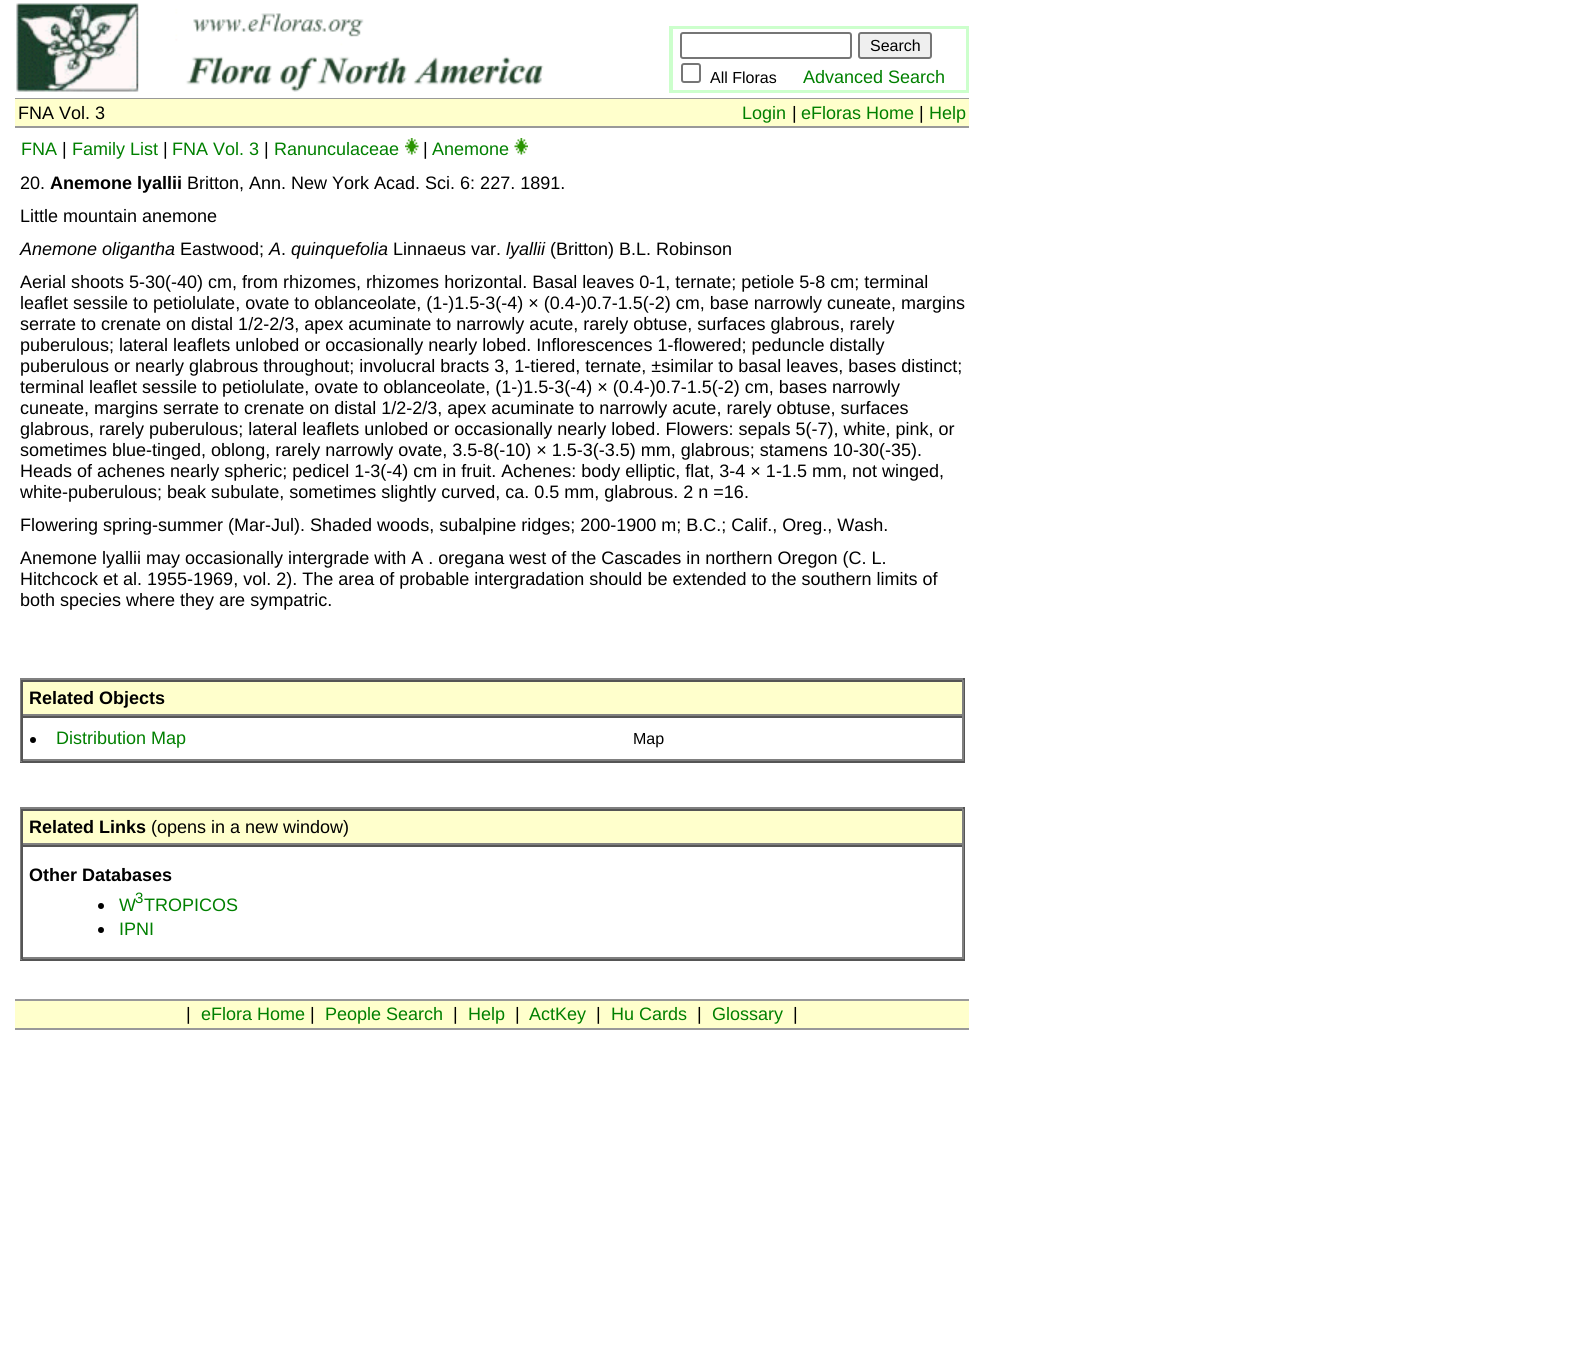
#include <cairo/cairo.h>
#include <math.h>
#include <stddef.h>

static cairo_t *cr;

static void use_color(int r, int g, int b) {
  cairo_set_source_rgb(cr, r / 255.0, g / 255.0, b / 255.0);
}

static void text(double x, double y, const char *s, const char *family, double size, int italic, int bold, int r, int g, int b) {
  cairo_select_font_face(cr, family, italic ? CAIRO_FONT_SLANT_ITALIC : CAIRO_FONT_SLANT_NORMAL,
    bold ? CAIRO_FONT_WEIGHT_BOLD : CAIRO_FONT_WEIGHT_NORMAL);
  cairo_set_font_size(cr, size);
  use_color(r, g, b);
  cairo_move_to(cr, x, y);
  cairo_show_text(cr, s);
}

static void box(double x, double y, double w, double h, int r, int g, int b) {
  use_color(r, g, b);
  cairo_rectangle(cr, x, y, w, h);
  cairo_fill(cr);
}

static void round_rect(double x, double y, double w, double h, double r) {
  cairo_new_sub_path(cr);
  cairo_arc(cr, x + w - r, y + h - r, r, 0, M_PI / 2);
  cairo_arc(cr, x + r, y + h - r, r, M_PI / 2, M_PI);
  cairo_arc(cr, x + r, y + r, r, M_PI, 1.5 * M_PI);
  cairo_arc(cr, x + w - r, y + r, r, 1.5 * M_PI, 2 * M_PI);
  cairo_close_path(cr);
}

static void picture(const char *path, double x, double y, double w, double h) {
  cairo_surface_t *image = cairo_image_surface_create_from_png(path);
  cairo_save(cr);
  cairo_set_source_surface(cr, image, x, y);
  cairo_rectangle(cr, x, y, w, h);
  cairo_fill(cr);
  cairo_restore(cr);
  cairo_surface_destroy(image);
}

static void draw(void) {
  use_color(255, 255, 255);
  cairo_paint(cr);
  picture("img_01.png", 16, 3, 528, 89);
  cairo_rectangle(cr, 670, 27, 298, 65);
  use_color(204, 255, 204);
  cairo_stroke(cr);
  cairo_rectangle(cr, 672, 28, 295, 63);
  cairo_stroke(cr);
  round_rect(681, 33, 170, 25, 2);
  use_color(118, 118, 118);
  cairo_stroke(cr);
  use_color(239, 239, 239);
  round_rect(859, 33, 72, 25, 2);
  cairo_fill_preserve(cr);
  use_color(118, 118, 118);
  cairo_stroke(cr);
  round_rect(682, 64, 18, 18, 2);
  cairo_stroke(cr);
  box(15, 98, 954, 1, 153, 153, 153);
  box(15, 99, 954, 27, 255, 255, 204);
  box(15, 126, 954, 2, 153, 153, 153);
  picture("img_02.png", 405, 138, 14, 17);
  picture("img_03.png", 514, 138, 14, 17);
  box(20, 678, 945, 2, 128, 128, 128);
  box(963, 678, 2, 84, 85, 85, 85);
  box(20, 761, 945, 2, 85, 85, 85);
  box(20, 678, 2, 84, 128, 128, 128);
  box(23, 682, 939, 32, 255, 255, 204);
  box(21, 680, 942, 2, 85, 85, 85);
  box(962, 680, 2, 36, 128, 128, 128);
  box(21, 714, 942, 2, 128, 128, 128);
  box(21, 680, 2, 36, 85, 85, 85);
  box(21, 716, 942, 2, 85, 85, 85);
  box(962, 716, 2, 45, 128, 128, 128);
  box(21, 759, 942, 2, 128, 128, 128);
  box(21, 716, 2, 45, 85, 85, 85);
  use_color(0, 0, 0);
  cairo_arc(cr, 33, 740, 3, 0, 2 * M_PI);
  cairo_fill(cr);
  box(20, 807, 945, 2, 128, 128, 128);
  box(963, 807, 2, 153, 85, 85, 85);
  box(20, 959, 945, 2, 85, 85, 85);
  box(20, 807, 2, 153, 128, 128, 128);
  box(23, 811, 939, 32, 255, 255, 204);
  box(21, 809, 942, 2, 85, 85, 85);
  box(962, 809, 2, 36, 128, 128, 128);
  box(21, 843, 942, 2, 128, 128, 128);
  box(21, 809, 2, 36, 85, 85, 85);
  box(21, 845, 942, 2, 85, 85, 85);
  box(962, 845, 2, 114, 128, 128, 128);
  box(21, 957, 942, 2, 128, 128, 128);
  box(21, 845, 2, 114, 85, 85, 85);
  use_color(0, 0, 0);
  cairo_arc(cr, 101, 906, 3, 0, 2 * M_PI);
  cairo_fill(cr);
  cairo_arc(cr, 101, 930, 3, 0, 2 * M_PI);
  cairo_fill(cr);
  box(15, 999, 954, 2, 153, 153, 153);
  box(15, 1001, 954, 27, 255, 255, 204);
  box(15, 1028, 954, 2, 153, 153, 153);
  text(870, 51, "Search", "Liberation Sans", 16, 0, 0, 0, 0, 0);
  text(710, 83, "All Floras", "Liberation Sans", 16, 0, 0, 0, 0, 0);
  text(803, 83, "Advanced Search", "Liberation Sans", 18, 0, 0, 0, 128, 0);
  text(18, 119, "FNA Vol. 3", "Liberation Sans", 18, 0, 0, 0, 0, 0);
  text(742, 119, "Login", "Liberation Sans", 18, 0, 0, 0, 128, 0);
  text(792, 119, "|", "Liberation Sans", 18, 0, 0, 0, 0, 0);
  text(801, 119, "eFloras Home", "Liberation Sans", 18, 0, 0, 0, 128, 0);
  text(919, 119, "|", "Liberation Sans", 18, 0, 0, 0, 0, 0);
  text(929, 119, "Help", "Liberation Sans", 18, 0, 0, 0, 128, 0);
  text(21, 155, "FNA", "Liberation Sans", 18, 0, 0, 0, 128, 0);
  text(62, 155, "|", "Liberation Sans", 18, 0, 0, 0, 0, 0);
  text(72, 155, "Family List", "Liberation Sans", 18, 0, 0, 0, 128, 0);
  text(163, 155, "|", "Liberation Sans", 18, 0, 0, 0, 0, 0);
  text(172, 155, "FNA Vol. 3", "Liberation Sans", 18, 0, 0, 0, 128, 0);
  text(264, 155, "|", "Liberation Sans", 18, 0, 0, 0, 0, 0);
  text(274, 155, "Ranunculaceae", "Liberation Sans", 18, 0, 0, 0, 128, 0);
  text(423, 155, "|", "Liberation Sans", 18, 0, 0, 0, 0, 0);
  text(432, 155, "Anemone", "Liberation Sans", 18, 0, 0, 0, 128, 0);
  text(20, 189, "20.", "Liberation Sans", 18, 0, 0, 0, 0, 0);
  text(50, 189, "Anemone lyallii", "Liberation Sans", 18, 0, 1, 0, 0, 0);
  text(187, 189, "Britton, Ann. New York Acad. Sci. 6: 227. 1891.", "Liberation Sans", 18, 0, 0, 0, 0, 0);
  text(20, 222, "Little mountain anemone", "Liberation Sans", 18, 0, 0, 0, 0, 0);
  text(20, 255, "Anemone oligantha", "Liberation Sans", 18, 1, 0, 0, 0, 0);
  text(180, 255, "Eastwood;", "Liberation Sans", 18, 0, 0, 0, 0, 0);
  text(269, 255, "A", "Liberation Sans", 18, 1, 0, 0, 0, 0);
  text(281, 255, ".", "Liberation Sans", 18, 0, 0, 0, 0, 0);
  text(291, 255, "quinquefolia", "Liberation Sans", 18, 1, 0, 0, 0, 0);
  text(393, 255, "Linnaeus var.", "Liberation Sans", 18, 0, 0, 0, 0, 0);
  text(506, 255, "lyallii", "Liberation Sans", 18, 1, 0, 0, 0, 0);
  text(550, 255, "(Britton) B.L. Robinson", "Liberation Sans", 18, 0, 0, 0, 0, 0);
  text(20, 288, "Aerial shoots 5-30(-40) cm, from rhizomes, rhizomes horizontal. Basal leaves 0-1, ternate; petiole 5-8 cm; terminal", "Liberation Sans", 18, 0, 0, 0, 0, 0);
  text(20, 309, "leaflet sessile to petiolulate, ovate to oblanceolate, (1-)1.5-3(-4) × (0.4-)0.7-1.5(-2) cm, base narrowly cuneate, margins", "Liberation Sans", 18, 0, 0, 0, 0, 0);
  text(20, 330, "serrate to crenate on distal 1/2-2/3, apex acuminate to narrowly acute, rarely obtuse, surfaces glabrous, rarely", "Liberation Sans", 18, 0, 0, 0, 0, 0);
  text(20, 351, "puberulous; lateral leaflets unlobed or occasionally nearly lobed. Inflorescences 1-flowered; peduncle distally", "Liberation Sans", 18, 0, 0, 0, 0, 0);
  text(20, 372, "puberulous or nearly glabrous throughout; involucral bracts 3, 1-tiered, ternate, ±similar to basal leaves, bases distinct;", "Liberation Sans", 18, 0, 0, 0, 0, 0);
  text(20, 393, "terminal leaflet sessile to petiolulate, ovate to oblanceolate, (1-)1.5-3(-4) × (0.4-)0.7-1.5(-2) cm, bases narrowly", "Liberation Sans", 18, 0, 0, 0, 0, 0);
  text(20, 414, "cuneate, margins serrate to crenate on distal 1/2-2/3, apex acuminate to narrowly acute, rarely obtuse, surfaces", "Liberation Sans", 18, 0, 0, 0, 0, 0);
  text(20, 435, "glabrous, rarely puberulous; lateral leaflets unlobed or occasionally nearly lobed. Flowers: sepals 5(-7), white, pink, or", "Liberation Sans", 18, 0, 0, 0, 0, 0);
  text(20, 456, "sometimes blue-tinged, oblong, rarely narrowly ovate, 3.5-8(-10) × 1.5-3(-3.5) mm, glabrous; stamens 10-30(-35).", "Liberation Sans", 18, 0, 0, 0, 0, 0);
  text(20, 477, "Heads of achenes nearly spheric; pedicel 1-3(-4) cm in fruit. Achenes: body elliptic, flat, 3-4 × 1-1.5 mm, not winged,", "Liberation Sans", 18, 0, 0, 0, 0, 0);
  text(20, 498, "white-puberulous; beak subulate, sometimes slightly curved, ca. 0.5 mm, glabrous. 2 n =16.", "Liberation Sans", 18, 0, 0, 0, 0, 0);
  text(20, 531, "Flowering spring-summer (Mar-Jul). Shaded woods, subalpine ridges; 200-1900 m; B.C.; Calif., Oreg., Wash.", "Liberation Sans", 18, 0, 0, 0, 0, 0);
  text(20, 564, "Anemone lyallii may occasionally intergrade with A . oregana west of the Cascades in northern Oregon (C. L.", "Liberation Sans", 18, 0, 0, 0, 0, 0);
  text(20, 585, "Hitchcock et al. 1955-1969, vol. 2). The area of probable intergradation should be extended to the southern limits of", "Liberation Sans", 18, 0, 0, 0, 0, 0);
  text(20, 606, "both species where they are sympatric.", "Liberation Sans", 18, 0, 0, 0, 0, 0);
  text(29, 704, "Related Objects", "Liberation Sans", 18, 0, 1, 0, 0, 0);
  text(56, 744, "Distribution Map", "Liberation Sans", 18, 0, 0, 0, 128, 0);
  text(633, 744, "Map", "Liberation Sans", 16, 0, 0, 0, 0, 0);
  text(29, 833, "Related Links", "Liberation Sans", 18, 0, 1, 0, 0, 0);
  text(151, 833, "(opens in a new window)", "Liberation Sans", 18, 0, 0, 0, 0, 0);
  text(29, 881, "Other Databases", "Liberation Sans", 18, 0, 1, 0, 0, 0);
  text(119, 911, "W", "Liberation Sans", 18, 0, 0, 0, 128, 0);
  text(135, 903, "3", "Liberation Sans", 15, 0, 0, 0, 128, 0);
  text(144, 911, "TROPICOS", "Liberation Sans", 18, 0, 0, 0, 128, 0);
  text(119, 935, "IPNI", "Liberation Sans", 18, 0, 0, 0, 128, 0);
  text(186, 1020, "|", "Liberation Sans", 18, 0, 0, 0, 0, 0);
  text(201, 1020, "eFlora Home", "Liberation Sans", 18, 0, 0, 0, 128, 0);
  text(310, 1020, "|", "Liberation Sans", 18, 0, 0, 0, 0, 0);
  text(325, 1020, "People Search", "Liberation Sans", 18, 0, 0, 0, 128, 0);
  text(453, 1020, "|", "Liberation Sans", 18, 0, 0, 0, 0, 0);
  text(468, 1020, "Help", "Liberation Sans", 18, 0, 0, 0, 128, 0);
  text(515, 1020, "|", "Liberation Sans", 18, 0, 0, 0, 0, 0);
  text(529, 1020, "ActKey", "Liberation Sans", 18, 0, 0, 0, 128, 0);
  text(596, 1020, "|", "Liberation Sans", 18, 0, 0, 0, 0, 0);
  text(611, 1020, "Hu Cards", "Liberation Sans", 18, 0, 0, 0, 128, 0);
  text(697, 1020, "|", "Liberation Sans", 18, 0, 0, 0, 0, 0);
  text(712, 1020, "Glossary", "Liberation Sans", 18, 0, 0, 0, 128, 0);
  text(793, 1020, "|", "Liberation Sans", 18, 0, 0, 0, 0, 0);
}

int main(void) {
  cairo_surface_t *surface = cairo_image_surface_create(CAIRO_FORMAT_RGB24, 1585, 1366);
  cr = cairo_create(surface);
  cairo_font_options_t *options = cairo_font_options_create();
  cairo_font_options_set_hint_metrics(options, CAIRO_HINT_METRICS_OFF);
  cairo_font_options_set_hint_style(options, CAIRO_HINT_STYLE_NONE);
  cairo_set_font_options(cr, options);
  cairo_set_miter_limit(cr, 4);
  draw();
  cairo_surface_write_to_png(surface, "out.png");
  cairo_font_options_destroy(options);
  cairo_destroy(cr);
  cairo_surface_destroy(surface);
  return 0;
}
